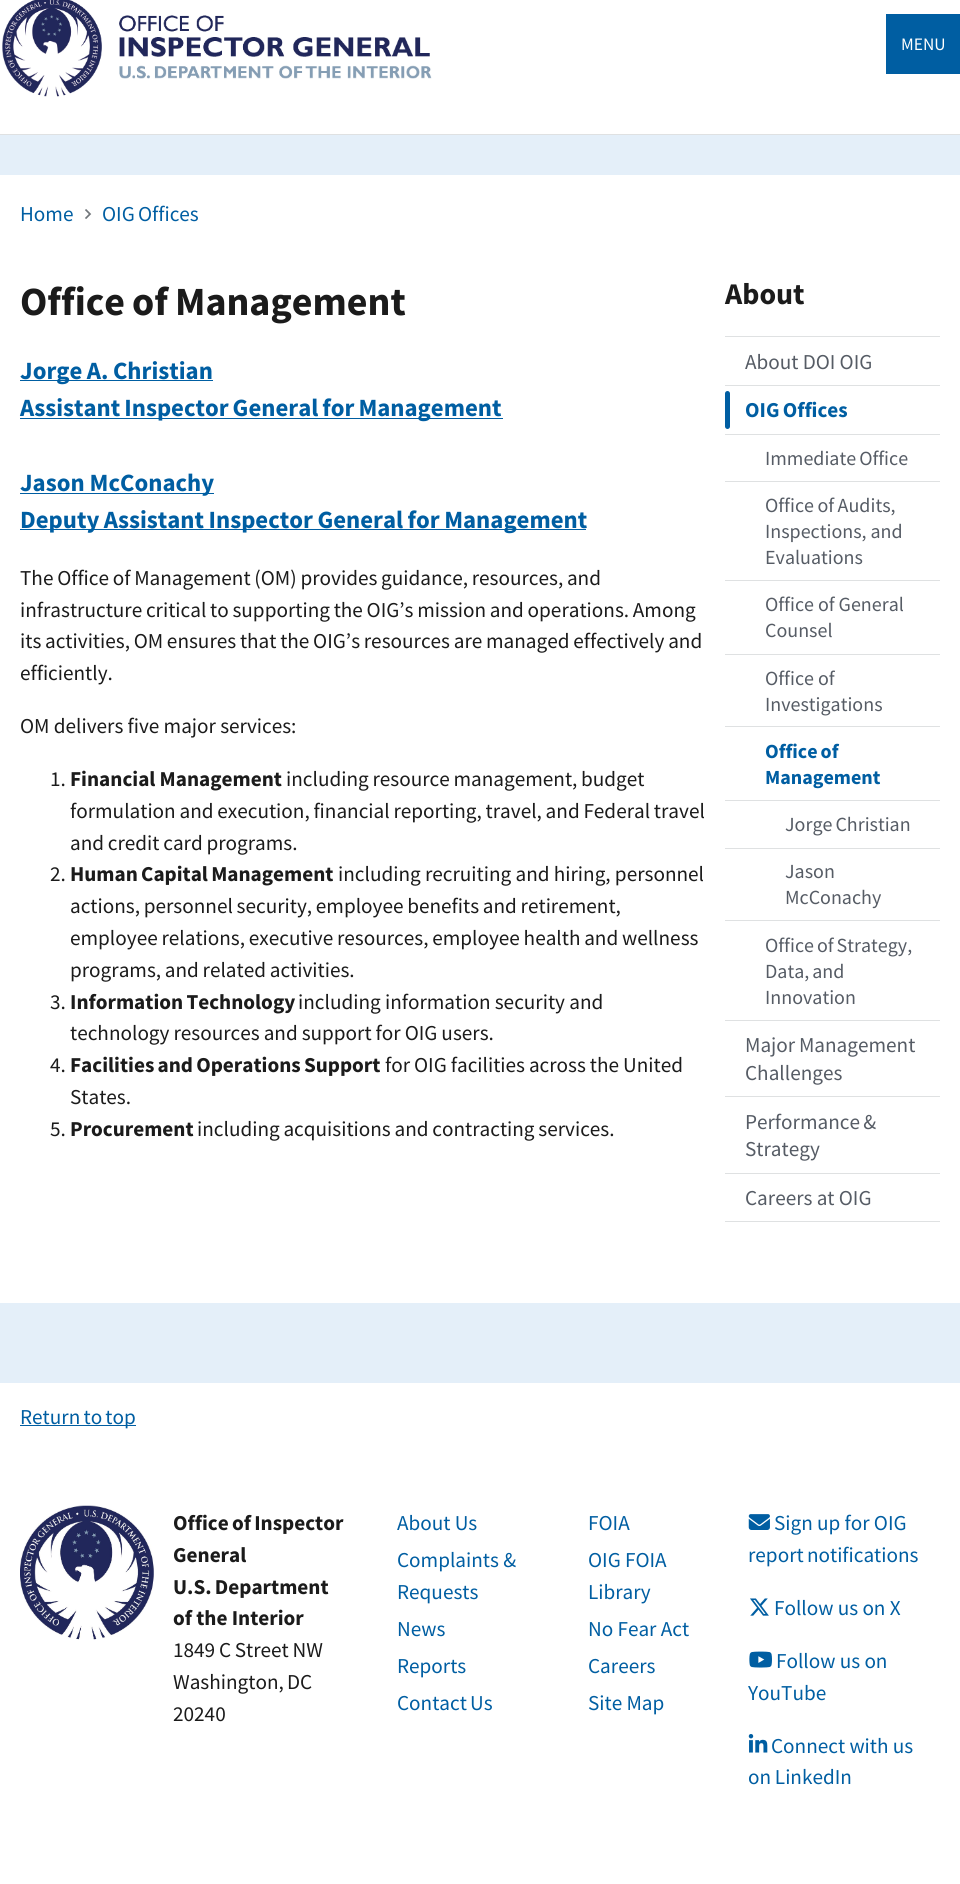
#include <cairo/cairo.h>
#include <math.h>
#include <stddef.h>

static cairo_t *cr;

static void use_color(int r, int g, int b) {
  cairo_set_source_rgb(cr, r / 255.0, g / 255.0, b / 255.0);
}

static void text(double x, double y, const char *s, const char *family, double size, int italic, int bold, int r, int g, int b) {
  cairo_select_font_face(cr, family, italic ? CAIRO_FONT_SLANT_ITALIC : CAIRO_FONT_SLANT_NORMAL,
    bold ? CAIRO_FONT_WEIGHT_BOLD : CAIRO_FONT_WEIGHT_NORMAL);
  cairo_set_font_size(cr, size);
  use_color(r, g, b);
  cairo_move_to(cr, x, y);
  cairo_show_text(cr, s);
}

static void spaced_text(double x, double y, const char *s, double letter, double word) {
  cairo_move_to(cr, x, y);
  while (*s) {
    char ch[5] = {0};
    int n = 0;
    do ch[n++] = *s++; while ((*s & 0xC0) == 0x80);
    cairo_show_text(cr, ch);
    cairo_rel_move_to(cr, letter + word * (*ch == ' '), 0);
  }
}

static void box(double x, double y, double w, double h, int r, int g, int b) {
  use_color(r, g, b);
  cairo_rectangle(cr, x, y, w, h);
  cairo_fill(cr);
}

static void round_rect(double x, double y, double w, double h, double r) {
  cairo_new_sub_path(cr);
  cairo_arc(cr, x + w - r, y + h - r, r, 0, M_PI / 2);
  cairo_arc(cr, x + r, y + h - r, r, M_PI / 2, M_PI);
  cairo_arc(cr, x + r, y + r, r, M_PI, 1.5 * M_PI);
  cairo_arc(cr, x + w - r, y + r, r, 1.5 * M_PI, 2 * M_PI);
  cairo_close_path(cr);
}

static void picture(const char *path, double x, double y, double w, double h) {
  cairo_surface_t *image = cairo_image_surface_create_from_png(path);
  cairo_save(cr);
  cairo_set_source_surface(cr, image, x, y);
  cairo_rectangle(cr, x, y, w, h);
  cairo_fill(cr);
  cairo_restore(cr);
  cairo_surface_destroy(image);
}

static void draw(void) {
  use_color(255, 255, 255);
  cairo_paint(cr);
  box(0, 134, 960, 1, 223, 225, 226);
  picture("img_01.png", 2, 0, 430, 97);
  box(886, 14, 74, 60, 0, 94, 162);
  box(0, 135, 960, 1248, 228, 239, 249);
  box(0, 175, 960, 1128, 255, 255, 255);
  picture("img_02.png", 85, 209, 7, 10);
  box(20, 380, 193, 1, 0, 94, 162);
  box(20, 418, 483, 1, 0, 94, 162);
  box(20, 493, 194, 1, 0, 94, 162);
  box(20, 529, 566, 1, 0, 94, 162);
  box(725, 1221, 215, 1, 223, 225, 226);
  box(725, 336, 215, 1, 223, 225, 226);
  box(725, 385, 215, 1, 223, 225, 226);
  use_color(0, 94, 162);
  round_rect(725, 391, 5, 38, 2.5);
  cairo_fill(cr);
  box(725, 434, 215, 1, 223, 225, 226);
  box(725, 481, 215, 1, 223, 225, 226);
  box(725, 580, 215, 1, 223, 225, 226);
  box(725, 654, 215, 1, 223, 225, 226);
  box(725, 726, 215, 1, 223, 225, 226);
  box(725, 800, 215, 1, 223, 225, 226);
  box(725, 848, 215, 1, 223, 225, 226);
  box(725, 920, 215, 1, 223, 225, 226);
  box(725, 1020, 215, 1, 223, 225, 226);
  box(725, 1096, 215, 1, 223, 225, 226);
  box(725, 1173, 215, 1, 223, 225, 226);
  box(20, 1425, 116, 1, 0, 94, 162);
  picture("img_03.png", 20, 1505, 134, 135);
  picture("img_04.png", 748, 1514, 22, 16);
  picture("img_05.png", 750, 1598, 19, 18);
  picture("img_06.png", 749, 1651, 23, 17);
  picture("img_07.png", 748, 1734, 20, 19);
  text(901, 50, "MENU", "Source Sans Pro", 17.5, 0, 0, 255, 255, 255);
  text(20, 221, "Home", "Source Sans Pro", 21.2, 0, 0, 0, 94, 162);
  spaced_text(102, 221, "OIG Offices", 0, -1);
  cairo_select_font_face(cr, "Source Sans Pro", CAIRO_FONT_SLANT_NORMAL, CAIRO_FONT_WEIGHT_BOLD);
  cairo_set_font_size(cr, 40);
  use_color(27, 27, 27);
  spaced_text(20, 315, "Office of Management", 0, -1);
  cairo_set_font_size(cr, 24.8);
  use_color(0, 94, 162);
  spaced_text(20, 379, "Jorge A. Christian", 0, -0.5);
  spaced_text(20, 416, "Assistant Inspector General for Management", 0, -1);
  text(20, 491, "Jason McConachy", "Source Sans Pro", 24.8, 0, 1, 0, 94, 162);
  spaced_text(20, 528, "Deputy Assistant Inspector General for Management", 0, -0.5);
  cairo_select_font_face(cr, "Source Sans Pro", CAIRO_FONT_SLANT_NORMAL, CAIRO_FONT_WEIGHT_NORMAL);
  cairo_set_font_size(cr, 21.2);
  use_color(27, 27, 27);
  spaced_text(20, 585, "The Office of Management (OM) provides guidance, resources, and", 0, -0.5);
  spaced_text(20, 617, "infrastructure critical to supporting the OIG’s mission and operations. Among", 0, -0.5);
  spaced_text(20, 648, "its activities, OM ensures that the OIG’s resources are managed effectively and", 0, -0.5);
  text(20, 680, "efficiently.", "Source Sans Pro", 21.2, 0, 0, 27, 27, 27);
  text(20, 733, "OM delivers five major services:", "Source Sans Pro", 21.2, 0, 0, 27, 27, 27);
  text(50, 786, "1.", "Source Sans Pro", 21.2, 0, 0, 27, 27, 27);
  text(70, 786, "Financial Management", "Source Sans Pro", 21.2, 0, 1, 27, 27, 27);
  cairo_select_font_face(cr, "Source Sans Pro", CAIRO_FONT_SLANT_NORMAL, CAIRO_FONT_WEIGHT_NORMAL);
  spaced_text(286, 786, "including resource management, budget", 0, -0.5);
  spaced_text(70, 818, "formulation and execution, financial reporting, travel, and Federal travel", 0, -0.5);
  spaced_text(70, 850, "and credit card programs.", 0, -0.5);
  text(50, 881, "2.", "Source Sans Pro", 21.2, 0, 0, 27, 27, 27);
  cairo_select_font_face(cr, "Source Sans Pro", CAIRO_FONT_SLANT_NORMAL, CAIRO_FONT_WEIGHT_BOLD);
  spaced_text(70, 881, "Human Capital Management", 0, -1);
  text(338, 881, "including recruiting and hiring, personnel", "Source Sans Pro", 21.2, 0, 0, 27, 27, 27);
  spaced_text(70, 913, "actions, personnel security, employee benefits and retirement,", 0, -0.5);
  spaced_text(70, 945, "employee relations, executive resources, employee health and wellness", 0, -0.5);
  spaced_text(70, 977, "programs, and related activities.", 0, -0.5);
  text(50, 1009, "3.", "Source Sans Pro", 21.2, 0, 0, 27, 27, 27);
  cairo_select_font_face(cr, "Source Sans Pro", CAIRO_FONT_SLANT_NORMAL, CAIRO_FONT_WEIGHT_BOLD);
  spaced_text(70, 1009, "Information Technology", 0, -1);
  text(298, 1009, "including information security and", "Source Sans Pro", 21.2, 0, 0, 27, 27, 27);
  spaced_text(70, 1040, "technology resources and support for OIG users.", 0, -0.25);
  text(50, 1072, "4.", "Source Sans Pro", 21.2, 0, 0, 27, 27, 27);
  cairo_select_font_face(cr, "Source Sans Pro", CAIRO_FONT_SLANT_NORMAL, CAIRO_FONT_WEIGHT_BOLD);
  spaced_text(70, 1072, "Facilities and Operations Support", 0, -1);
  cairo_select_font_face(cr, "Source Sans Pro", CAIRO_FONT_SLANT_NORMAL, CAIRO_FONT_WEIGHT_NORMAL);
  spaced_text(385, 1072, "for OIG facilities across the United", 0, -0.25);
  text(70, 1104, "States.", "Source Sans Pro", 21.2, 0, 0, 27, 27, 27);
  text(50, 1136, "5.", "Source Sans Pro", 21.2, 0, 0, 27, 27, 27);
  text(70, 1136, "Procurement", "Source Sans Pro", 21.2, 0, 1, 27, 27, 27);
  cairo_select_font_face(cr, "Source Sans Pro", CAIRO_FONT_SLANT_NORMAL, CAIRO_FONT_WEIGHT_NORMAL);
  spaced_text(197, 1136, "including acquisitions and contracting services.", 0, -0.5);
  text(725, 304, "About", "Source Sans Pro", 30, 0, 1, 27, 27, 27);
  text(745, 369, "About DOI OIG", "Source Sans Pro", 21.2, 0, 0, 86, 92, 101);
  cairo_select_font_face(cr, "Source Sans Pro", CAIRO_FONT_SLANT_NORMAL, CAIRO_FONT_WEIGHT_BOLD);
  use_color(0, 94, 162);
  spaced_text(745, 417, "OIG Offices", 0, -1);
  cairo_select_font_face(cr, "Source Sans Pro", CAIRO_FONT_SLANT_NORMAL, CAIRO_FONT_WEIGHT_NORMAL);
  cairo_set_font_size(cr, 20);
  use_color(86, 92, 101);
  spaced_text(765, 465, "Immediate Office", 0, -1);
  spaced_text(765, 512, "Office of Audits,", 0, -0.5);
  text(765, 538, "Inspections, and", "Source Sans Pro", 20, 0, 0, 86, 92, 101);
  text(765, 564, "Evaluations", "Source Sans Pro", 20, 0, 0, 86, 92, 101);
  text(765, 611, "Office of General", "Source Sans Pro", 20, 0, 0, 86, 92, 101);
  text(765, 637, "Counsel", "Source Sans Pro", 20, 0, 0, 86, 92, 101);
  text(765, 685, "Office of", "Source Sans Pro", 20, 0, 0, 86, 92, 101);
  text(765, 711, "Investigations", "Source Sans Pro", 20, 0, 0, 86, 92, 101);
  cairo_select_font_face(cr, "Source Sans Pro", CAIRO_FONT_SLANT_NORMAL, CAIRO_FONT_WEIGHT_BOLD);
  use_color(0, 94, 162);
  spaced_text(765, 758, "Office of", 0, -1);
  text(765, 784, "Management", "Source Sans Pro", 20, 0, 1, 0, 94, 162);
  cairo_select_font_face(cr, "Source Sans Pro", CAIRO_FONT_SLANT_NORMAL, CAIRO_FONT_WEIGHT_NORMAL);
  use_color(86, 92, 101);
  spaced_text(785, 831, "Jorge Christian", 0, -1);
  text(785, 878, "Jason", "Source Sans Pro", 20, 0, 0, 86, 92, 101);
  text(785, 904, "McConachy", "Source Sans Pro", 20, 0, 0, 86, 92, 101);
  spaced_text(765, 952, "Office of Strategy,", 0, -1);
  spaced_text(765, 978, "Data, and", 0, -1);
  text(765, 1004, "Innovation", "Source Sans Pro", 20, 0, 0, 86, 92, 101);
  cairo_set_font_size(cr, 21.2);
  spaced_text(745, 1052, "Major Management", 0, -0.5);
  text(745, 1080, "Challenges", "Source Sans Pro", 21.2, 0, 0, 86, 92, 101);
  spaced_text(745, 1129, "Performance &", 0, -1);
  text(745, 1156, "Strategy", "Source Sans Pro", 21.2, 0, 0, 86, 92, 101);
  text(745, 1205, "Careers at OIG", "Source Sans Pro", 21.2, 0, 0, 86, 92, 101);
  use_color(0, 94, 162);
  spaced_text(20, 1424, "Return to top", 0, -1);
  cairo_select_font_face(cr, "Source Sans Pro", CAIRO_FONT_SLANT_NORMAL, CAIRO_FONT_WEIGHT_BOLD);
  use_color(27, 27, 27);
  spaced_text(173, 1530, "Office of Inspector", 0, -1);
  text(173, 1562, "General", "Source Sans Pro", 21.2, 0, 1, 27, 27, 27);
  spaced_text(173, 1594, "U.S. Department", 0, -1);
  text(173, 1625, "of the Interior", "Source Sans Pro", 21.2, 0, 1, 27, 27, 27);
  cairo_select_font_face(cr, "Source Sans Pro", CAIRO_FONT_SLANT_NORMAL, CAIRO_FONT_WEIGHT_NORMAL);
  spaced_text(173, 1657, "1849 C Street NW", 0, -0.5);
  spaced_text(173, 1689, "Washington, DC", 0, -1);
  text(173, 1721, "20240", "Source Sans Pro", 21.2, 0, 0, 27, 27, 27);
  text(397, 1530, "About Us", "Source Sans Pro", 21.2, 0, 0, 0, 94, 162);
  text(397, 1567, "Complaints &", "Source Sans Pro", 21.2, 0, 0, 0, 94, 162);
  text(397, 1599, "Requests", "Source Sans Pro", 21.2, 0, 0, 0, 94, 162);
  text(397, 1636, "News", "Source Sans Pro", 21.2, 0, 0, 0, 94, 162);
  text(397, 1673, "Reports", "Source Sans Pro", 21.2, 0, 0, 0, 94, 162);
  spaced_text(397, 1710, "Contact Us", 0, -1);
  text(588, 1530, "FOIA", "Source Sans Pro", 21.2, 0, 0, 0, 94, 162);
  text(588, 1567, "OIG FOIA", "Source Sans Pro", 21.2, 0, 0, 0, 94, 162);
  text(588, 1599, "Library", "Source Sans Pro", 21.2, 0, 0, 0, 94, 162);
  text(588, 1636, "No Fear Act", "Source Sans Pro", 21.2, 0, 0, 0, 94, 162);
  text(588, 1673, "Careers", "Source Sans Pro", 21.2, 0, 0, 0, 94, 162);
  text(588, 1710, "Site Map", "Source Sans Pro", 21.2, 0, 0, 0, 94, 162);
  text(774, 1530, "Sign up for OIG", "Source Sans Pro", 21.2, 0, 0, 0, 94, 162);
  spaced_text(748, 1562, "report notifications", 0, -1);
  text(774, 1615, "Follow us on X", "Source Sans Pro", 21.2, 0, 0, 0, 94, 162);
  text(776, 1668, "Follow us on", "Source Sans Pro", 21.2, 0, 0, 0, 94, 162);
  text(748, 1700, "YouTube", "Source Sans Pro", 21.2, 0, 0, 0, 94, 162);
  text(771, 1753, "Connect with us", "Source Sans Pro", 21.2, 0, 0, 0, 94, 162);
  spaced_text(748, 1784, "on LinkedIn", 0, -0.5);
}

int main(void) {
  cairo_surface_t *surface = cairo_image_surface_create(CAIRO_FORMAT_RGB24, 960, 1884);
  cr = cairo_create(surface);
  cairo_font_options_t *options = cairo_font_options_create();
  cairo_font_options_set_hint_metrics(options, CAIRO_HINT_METRICS_OFF);
  cairo_font_options_set_hint_style(options, CAIRO_HINT_STYLE_NONE);
  cairo_set_font_options(cr, options);
  cairo_set_miter_limit(cr, 4);
  draw();
  cairo_surface_write_to_png(surface, "out.png");
  cairo_font_options_destroy(options);
  cairo_destroy(cr);
  cairo_surface_destroy(surface);
  return 0;
}
